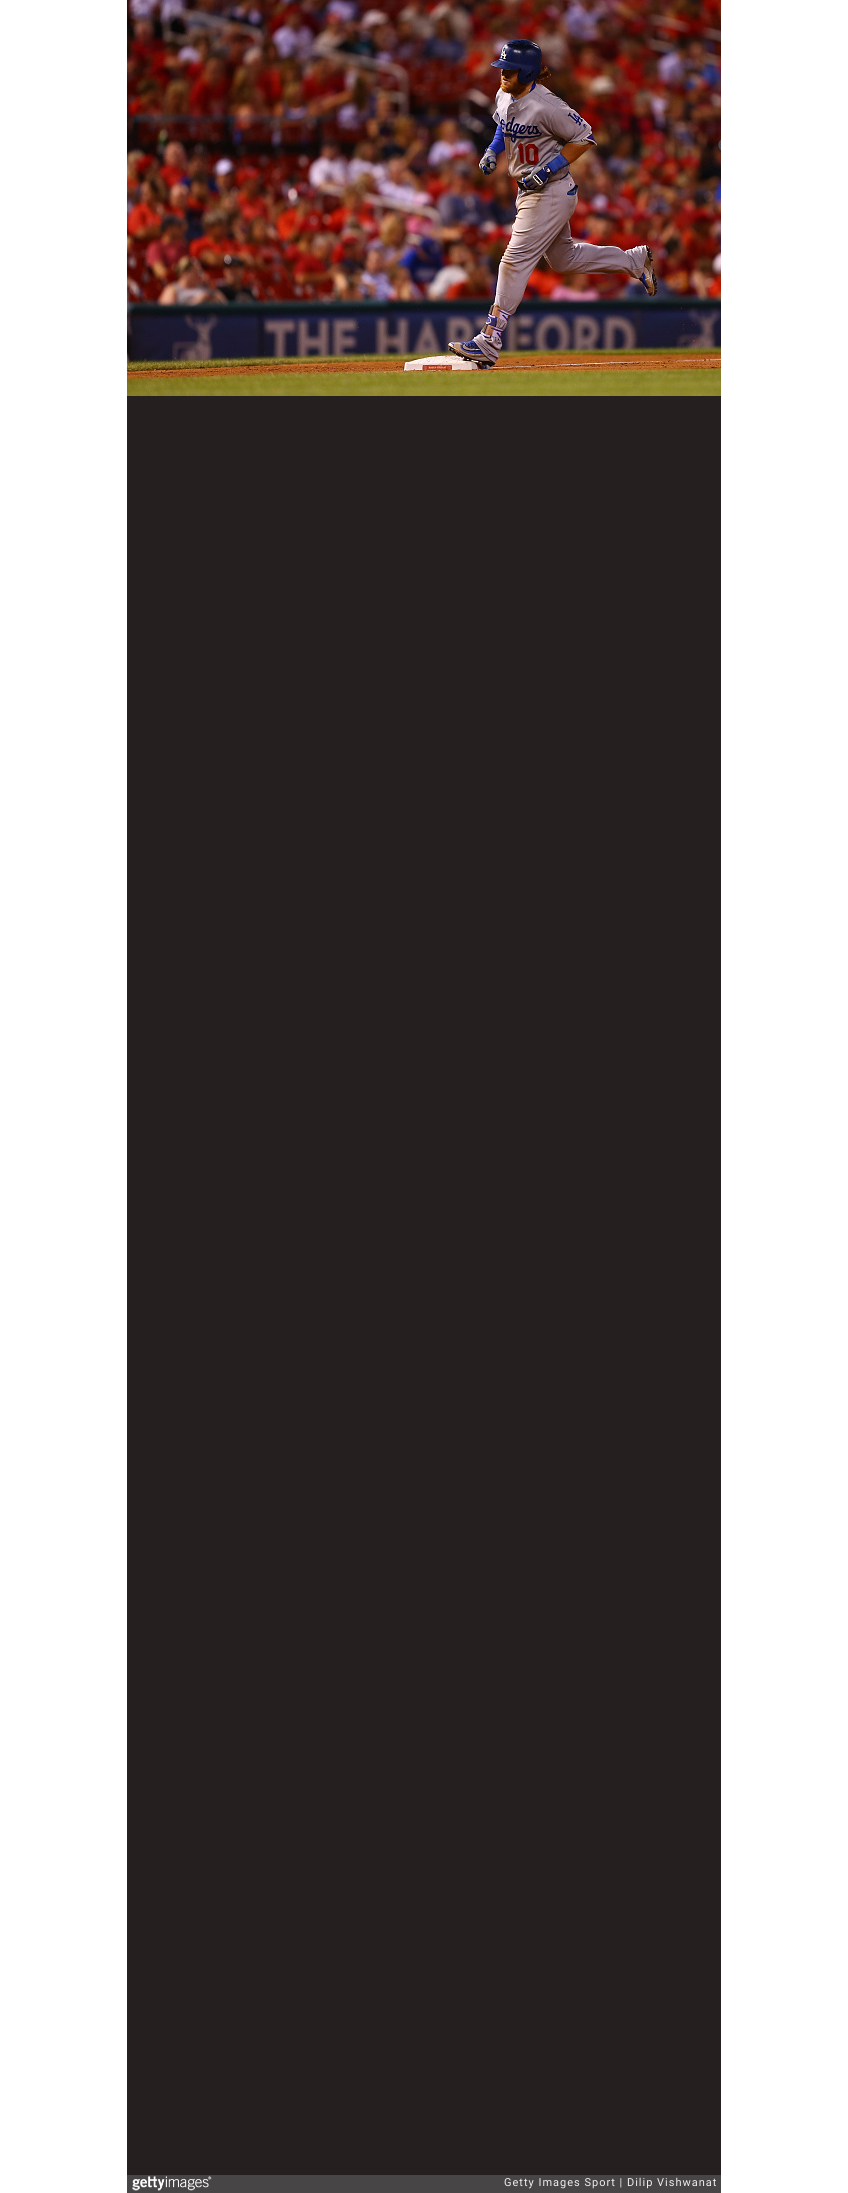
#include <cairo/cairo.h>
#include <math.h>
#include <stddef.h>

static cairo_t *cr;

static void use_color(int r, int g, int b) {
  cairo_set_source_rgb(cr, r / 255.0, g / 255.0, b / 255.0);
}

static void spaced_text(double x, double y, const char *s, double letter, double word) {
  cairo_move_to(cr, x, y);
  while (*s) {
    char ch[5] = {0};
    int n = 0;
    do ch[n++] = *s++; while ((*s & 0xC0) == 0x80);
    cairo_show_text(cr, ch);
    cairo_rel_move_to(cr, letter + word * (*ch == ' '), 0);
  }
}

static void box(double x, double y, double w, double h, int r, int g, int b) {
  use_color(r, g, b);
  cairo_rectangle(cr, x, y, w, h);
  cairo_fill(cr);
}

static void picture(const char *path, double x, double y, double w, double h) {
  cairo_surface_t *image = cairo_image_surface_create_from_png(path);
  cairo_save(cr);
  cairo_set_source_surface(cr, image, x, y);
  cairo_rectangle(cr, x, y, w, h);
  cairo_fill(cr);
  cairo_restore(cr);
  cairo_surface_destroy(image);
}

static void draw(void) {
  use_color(255, 255, 255);
  cairo_paint(cr);
  box(127, 396, 594, 1779, 37, 31, 32);
  picture("img_01.png", 127, 0, 594, 396);
  box(127, 2175, 594, 18, 71, 69, 69);
  picture("img_02.png", 132, 2176, 80, 15);
  cairo_select_font_face(cr, "Roboto", CAIRO_FONT_SLANT_NORMAL, CAIRO_FONT_WEIGHT_NORMAL);
  cairo_set_font_size(cr, 11);
  use_color(238, 238, 238);
  spaced_text(504, 2186, "Getty Images Sport | Dilip Vishwanat", 1, 0);
}

int main(void) {
  cairo_surface_t *surface = cairo_image_surface_create(CAIRO_FORMAT_RGB24, 848, 2193);
  cr = cairo_create(surface);
  cairo_font_options_t *options = cairo_font_options_create();
  cairo_font_options_set_hint_metrics(options, CAIRO_HINT_METRICS_OFF);
  cairo_font_options_set_hint_style(options, CAIRO_HINT_STYLE_NONE);
  cairo_set_font_options(cr, options);
  cairo_set_miter_limit(cr, 4);
  draw();
  cairo_surface_write_to_png(surface, "out.png");
  cairo_font_options_destroy(options);
  cairo_destroy(cr);
  cairo_surface_destroy(surface);
  return 0;
}
